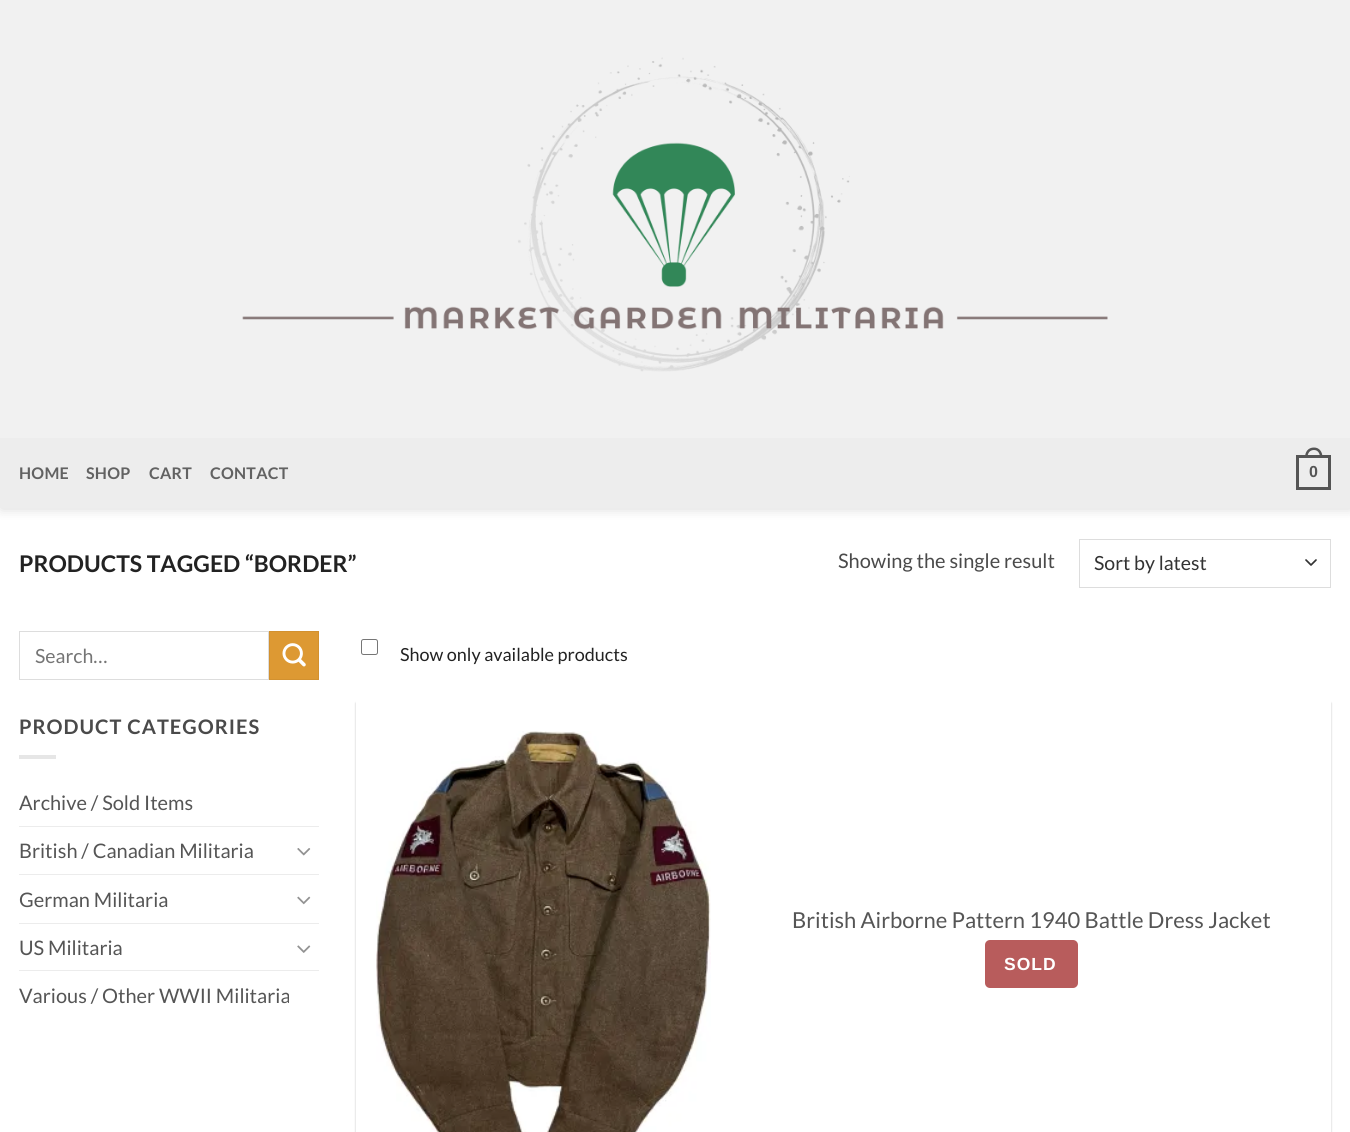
#include <cairo/cairo.h>
#include <math.h>
#include <stddef.h>

static cairo_t *cr;

static void use_color(int r, int g, int b) {
  cairo_set_source_rgb(cr, r / 255.0, g / 255.0, b / 255.0);
}

static void text(double x, double y, const char *s, const char *family, double size, int italic, int bold, int r, int g, int b) {
  cairo_select_font_face(cr, family, italic ? CAIRO_FONT_SLANT_ITALIC : CAIRO_FONT_SLANT_NORMAL,
    bold ? CAIRO_FONT_WEIGHT_BOLD : CAIRO_FONT_WEIGHT_NORMAL);
  cairo_set_font_size(cr, size);
  use_color(r, g, b);
  cairo_move_to(cr, x, y);
  cairo_show_text(cr, s);
}

static void spaced_text(double x, double y, const char *s, double letter, double word) {
  cairo_move_to(cr, x, y);
  while (*s) {
    char ch[5] = {0};
    int n = 0;
    do ch[n++] = *s++; while ((*s & 0xC0) == 0x80);
    cairo_show_text(cr, ch);
    cairo_rel_move_to(cr, letter + word * (*ch == ' '), 0);
  }
}

static void box(double x, double y, double w, double h, int r, int g, int b) {
  use_color(r, g, b);
  cairo_rectangle(cr, x, y, w, h);
  cairo_fill(cr);
}

static void round_rect(double x, double y, double w, double h, double r) {
  cairo_new_sub_path(cr);
  cairo_arc(cr, x + w - r, y + h - r, r, 0, M_PI / 2);
  cairo_arc(cr, x + r, y + h - r, r, M_PI / 2, M_PI);
  cairo_arc(cr, x + r, y + r, r, M_PI, 1.5 * M_PI);
  cairo_arc(cr, x + w - r, y + r, r, 1.5 * M_PI, 2 * M_PI);
  cairo_close_path(cr);
}

static void shadow(double x, double y, double w, double h, double r, double blur, double alpha) {
  cairo_push_group_with_content(cr, CAIRO_CONTENT_ALPHA);
  cairo_set_operator(cr, CAIRO_OPERATOR_SOURCE);
  for (int i = 15; i >= -15 && fmin(w, h) + blur * i / 3 > 0; i -= 2) {
    double e = blur * i / 6;
    cairo_set_source_rgba(cr, 0, 0, 0, alpha * erfc((i - 1) / 8.5) / 2);
    round_rect(x - e, y - e, w + 2 * e, h + 2 * e, fmax(0, fmin(r + e + blur * .6, fmin(w, h) / 2 + e)));
    cairo_fill(cr);
  }
  cairo_pattern_t *soft = cairo_pop_group(cr);
  cairo_mask(cr, soft);
  cairo_pattern_destroy(soft);
}

static void picture(const char *path, double x, double y, double w, double h) {
  cairo_surface_t *image = cairo_image_surface_create_from_png(path);
  cairo_save(cr);
  cairo_set_source_surface(cr, image, x, y);
  cairo_rectangle(cr, x, y, w, h);
  cairo_fill(cr);
  cairo_restore(cr);
  cairo_surface_destroy(image);
}

static void draw(void) {
  use_color(255, 255, 255);
  cairo_paint(cr);
  use_color(0, 0, 0);
  shadow(1, 1, 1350, 508, 0, 6, 0.15);
  box(0, 0, 1350, 438, 241, 241, 241);
  picture("img_01.png", 242, 57, 866, 315);
  box(0, 438, 1350, 70, 237, 237, 237);
  cairo_rectangle(cr, 1297.5, 456.5, 32, 32);
  use_color(85, 85, 85);
  cairo_set_line_width(cr, 3);
  cairo_stroke(cr);
  cairo_set_fill_rule(cr, CAIRO_FILL_RULE_EVEN_ODD);
  cairo_new_path(cr);
  cairo_move_to(cr, 1314, 447.5);
  cairo_curve_to(cr, 1319.5, 447.5, 1322.5, 452, 1322.5, 457.5);
  cairo_line_to(cr, 1305, 457.5);
  cairo_curve_to(cr, 1305, 452, 1308, 447.5, 1314, 447.5);
  cairo_close_path(cr);
  cairo_move_to(cr, 1314, 450);
  cairo_curve_to(cr, 1318, 450, 1320, 453.5, 1320, 457.5);
  cairo_line_to(cr, 1307.5, 457.5);
  cairo_curve_to(cr, 1307.5, 453.5, 1309.5, 450, 1314, 450);
  cairo_close_path(cr);
  cairo_fill(cr);
  cairo_new_path(cr);
  cairo_move_to(cr, 1306, 560);
  cairo_line_to(cr, 1311, 565);
  cairo_line_to(cr, 1316, 560);
  use_color(51, 51, 51);
  cairo_set_line_width(cr, 1.7);
  cairo_set_line_cap(cr, CAIRO_LINE_CAP_ROUND);
  cairo_set_line_join(cr, CAIRO_LINE_JOIN_ROUND);
  cairo_stroke(cr);
  cairo_rectangle(cr, 1079.5, 539.5, 251, 48);
  use_color(221, 221, 221);
  cairo_set_line_width(cr, 1);
  cairo_set_line_cap(cr, CAIRO_LINE_CAP_BUTT);
  cairo_set_line_join(cr, CAIRO_LINE_JOIN_MITER);
  cairo_stroke(cr);
  cairo_rectangle(cr, 19.5, 631.5, 249, 48);
  cairo_stroke(cr);
  use_color(221, 153, 51);
  cairo_rectangle(cr, 269.5, 631.5, 49, 48);
  cairo_fill_preserve(cr);
  use_color(210, 145, 48);
  cairo_stroke(cr);
  picture("img_02.png", 282, 643, 24, 24);
  box(19, 755, 37, 4, 230, 230, 230);
  box(19, 826, 300, 1, 236, 236, 236);
  picture("img_03.png", 297, 848, 14, 8);
  box(19, 874, 300, 1, 236, 236, 236);
  picture("img_04.png", 297, 896, 14, 9);
  box(19, 923, 300, 1, 236, 236, 236);
  picture("img_05.png", 297, 945, 14, 8);
  box(19, 970, 300, 1, 236, 236, 236);
  round_rect(361.5, 639.5, 16, 15, 2);
  use_color(118, 118, 118);
  cairo_stroke(cr);
  use_color(0, 0, 0);
  shadow(356, 703, 975, 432, 0, 1, 0.24);
  box(356, 701, 975, 431, 255, 255, 255);
  picture("img_06.png", 376, 731, 335, 401);
  use_color(184, 92, 92);
  round_rect(985, 940, 93, 48, 5);
  cairo_fill(cr);
  cairo_select_font_face(cr, "Lato", CAIRO_FONT_SLANT_NORMAL, CAIRO_FONT_WEIGHT_BOLD);
  cairo_set_font_size(cr, 16);
  use_color(98, 98, 98);
  spaced_text(19, 479, "HOME", 0.25, 0);
  spaced_text(86, 479, "SHOP", 0.25, 0);
  spaced_text(149, 479, "CART", 0.25, 0);
  spaced_text(210, 479, "CONTACT", 0.25, 0);
  cairo_select_font_face(cr, "Liberation Sans", CAIRO_FONT_SLANT_NORMAL, CAIRO_FONT_WEIGHT_BOLD);
  use_color(85, 85, 85);
  spaced_text(1309, 477, "0", 0.25, 0);
  text(19, 572, "PRODUCTS TAGGED “BORDER”", "Lato", 23, 0, 1, 34, 34, 34);
  text(838, 568, "Showing the single result", "Lato", 20, 0, 0, 74, 74, 74);
  text(1094, 570, "Sort by latest", "Lato", 19.5, 0, 0, 51, 51, 51);
  text(35, 663, "Search…", "Lato", 19.5, 0, 0, 117, 117, 117);
  cairo_select_font_face(cr, "Lato", CAIRO_FONT_SLANT_NORMAL, CAIRO_FONT_WEIGHT_BOLD);
  cairo_set_font_size(cr, 20);
  use_color(74, 74, 74);
  spaced_text(19, 734, "PRODUCT CATEGORIES", 1, 0);
  text(19, 810, "Archive / Sold Items", "Lato", 20, 0, 0, 85, 85, 85);
  text(19, 858, "British / Canadian Militaria", "Lato", 20, 0, 0, 85, 85, 85);
  text(19, 907, "German Militaria", "Lato", 20, 0, 0, 85, 85, 85);
  text(19, 955, "US Militaria", "Lato", 20, 0, 0, 85, 85, 85);
  text(19, 1003, "Various / Other WWII Militaria", "Lato", 20, 0, 0, 85, 85, 85);
  text(400, 661, "Show only available products", "Lato", 18, 0, 0, 34, 34, 34);
  text(792, 928, "British Airborne Pattern 1940 Battle Dress Jacket", "Lato", 22, 0, 0, 85, 85, 85);
  cairo_select_font_face(cr, "Liberation Sans", CAIRO_FONT_SLANT_NORMAL, CAIRO_FONT_WEIGHT_BOLD);
  cairo_set_font_size(cr, 17.5);
  use_color(255, 255, 255);
  spaced_text(1004, 970, "SOLD", 1, 0);
}

int main(void) {
  cairo_surface_t *surface = cairo_image_surface_create(CAIRO_FORMAT_RGB24, 1350, 1132);
  cr = cairo_create(surface);
  cairo_font_options_t *options = cairo_font_options_create();
  cairo_font_options_set_hint_metrics(options, CAIRO_HINT_METRICS_OFF);
  cairo_font_options_set_hint_style(options, CAIRO_HINT_STYLE_NONE);
  cairo_set_font_options(cr, options);
  cairo_set_miter_limit(cr, 4);
  draw();
  cairo_surface_write_to_png(surface, "out.png");
  cairo_font_options_destroy(options);
  cairo_destroy(cr);
  cairo_surface_destroy(surface);
  return 0;
}
